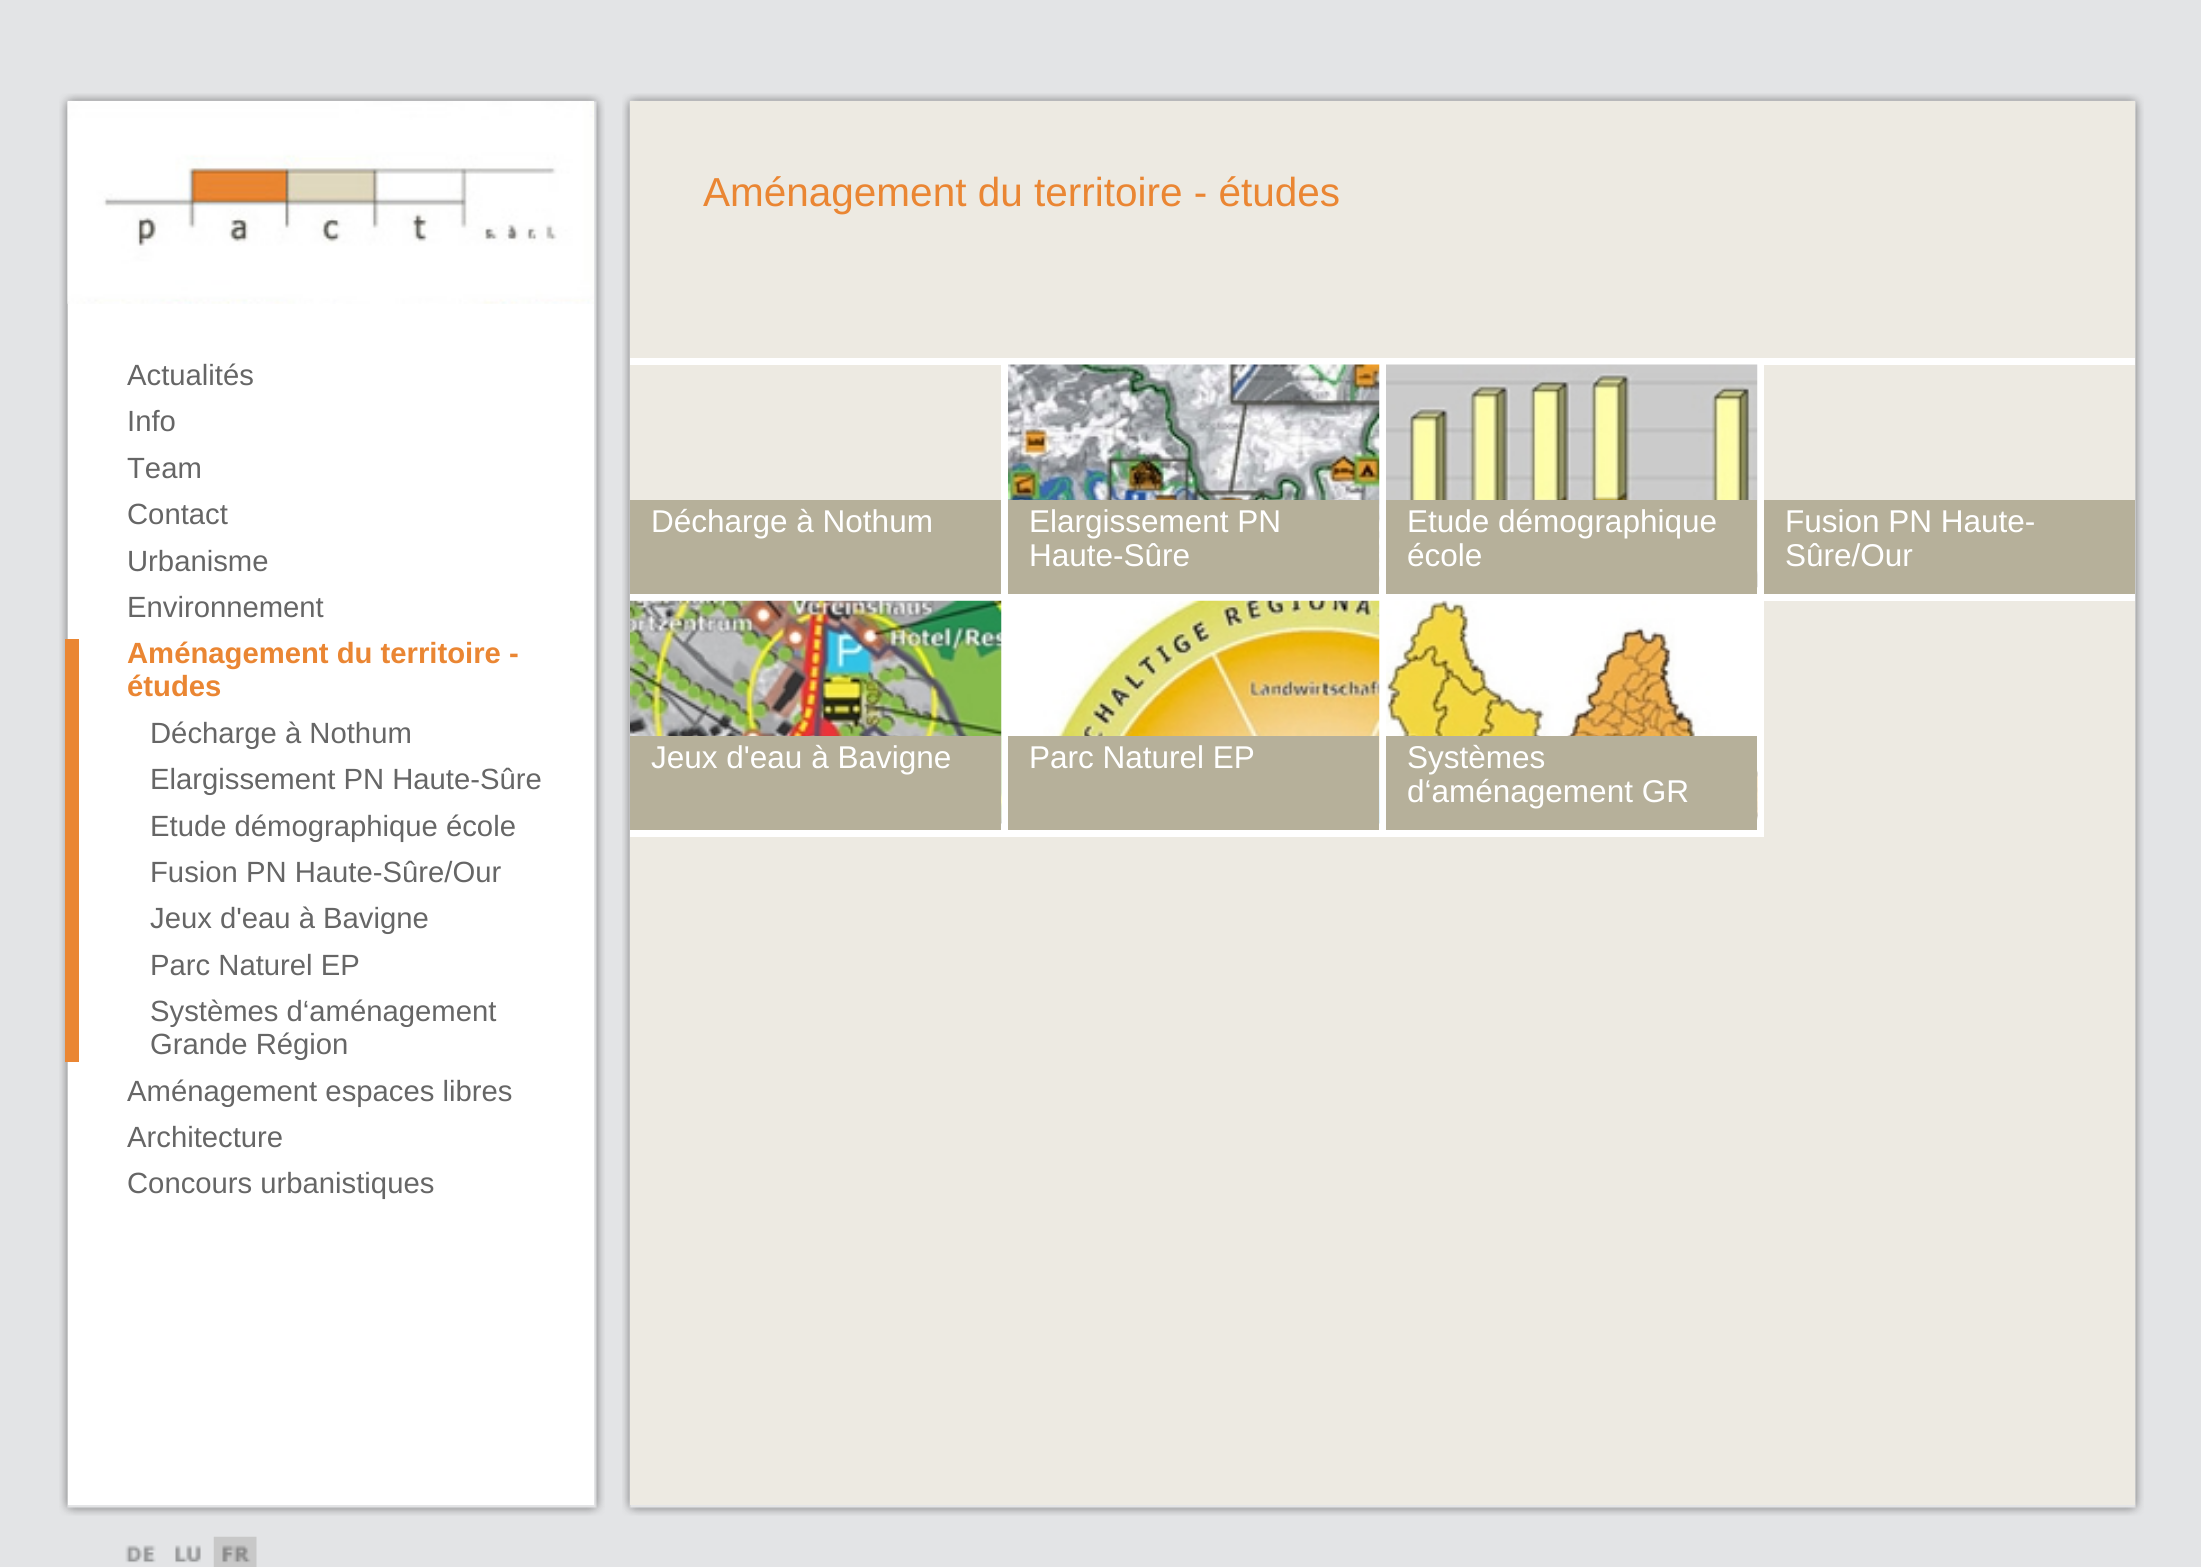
#include <cairo/cairo.h>
#include <math.h>
#include <stddef.h>

static cairo_t *cr;

static void use_color(int r, int g, int b) {
  cairo_set_source_rgb(cr, r / 255.0, g / 255.0, b / 255.0);
}

static void text(double x, double y, const char *s, const char *family, double size, int italic, int bold, int r, int g, int b) {
  cairo_select_font_face(cr, family, italic ? CAIRO_FONT_SLANT_ITALIC : CAIRO_FONT_SLANT_NORMAL,
    bold ? CAIRO_FONT_WEIGHT_BOLD : CAIRO_FONT_WEIGHT_NORMAL);
  cairo_set_font_size(cr, size);
  use_color(r, g, b);
  cairo_move_to(cr, x, y);
  cairo_show_text(cr, s);
}

static void box(double x, double y, double w, double h, int r, int g, int b) {
  use_color(r, g, b);
  cairo_rectangle(cr, x, y, w, h);
  cairo_fill(cr);
}

static void picture(const char *path, double x, double y, double w, double h) {
  cairo_surface_t *image = cairo_image_surface_create_from_png(path);
  cairo_save(cr);
  cairo_set_source_surface(cr, image, x, y);
  cairo_rectangle(cr, x, y, w, h);
  cairo_fill(cr);
  cairo_restore(cr);
  cairo_surface_destroy(image);
}

static void draw(void) {
  use_color(227, 228, 230);
  cairo_paint(cr);
  picture("img_01.png", 59, 93, 546, 1423);
  box(68, 101, 526, 1404, 255, 255, 255);
  picture("img_02.png", 67, 101, 527, 203);
  box(65, 639, 14, 423, 234, 134, 51);
  picture("img_03.png", 622, 93, 1522, 1423);
  box(630, 101, 1505, 1404, 237, 234, 226);
  box(630, 358, 1505, 7, 255, 255, 255);
  box(1001, 358, 7, 229, 255, 255, 255);
  box(630, 587, 1134, 14, 255, 255, 255);
  box(630, 500, 371, 94, 182, 176, 154);
  box(1379, 358, 7, 229, 255, 255, 255);
  picture("img_04.png", 1008, 364, 372, 224);
  box(1008, 500, 371, 94, 182, 176, 154);
  box(1757, 358, 7, 229, 255, 255, 255);
  picture("img_05.png", 1386, 364, 372, 224);
  box(1386, 500, 371, 94, 182, 176, 154);
  box(1764, 594, 371, 7, 255, 255, 255);
  box(1764, 500, 371, 94, 182, 176, 154);
  box(1001, 594, 7, 230, 255, 255, 255);
  box(630, 824, 1134, 13, 255, 255, 255);
  picture("img_06.png", 630, 600, 372, 224);
  box(630, 736, 371, 94, 182, 176, 154);
  box(1379, 594, 7, 230, 255, 255, 255);
  picture("img_07.png", 1008, 600, 372, 224);
  box(1008, 736, 371, 94, 182, 176, 154);
  box(1757, 594, 7, 230, 255, 255, 255);
  picture("img_08.png", 1386, 600, 372, 224);
  box(1386, 736, 371, 94, 182, 176, 154);
  picture("img_09.png", 125, 1545, 31, 18);
  picture("img_10.png", 175, 1545, 26, 18);
  picture("img_11.png", 213, 1536, 44, 31);
  text(127, 385, "Actualités", "Liberation Sans", 29.25, 0, 0, 102, 102, 102);
  text(127, 431, "Info", "Liberation Sans", 29.25, 0, 0, 102, 102, 102);
  text(127, 478, "Team", "Liberation Sans", 29.25, 0, 0, 102, 102, 102);
  text(127, 524, "Contact", "Liberation Sans", 29.25, 0, 0, 102, 102, 102);
  text(127, 571, "Urbanisme", "Liberation Sans", 29.25, 0, 0, 102, 102, 102);
  text(127, 617, "Environnement", "Liberation Sans", 29.25, 0, 0, 102, 102, 102);
  text(127, 663, "Aménagement du territoire -", "Liberation Sans", 29.25, 0, 1, 234, 134, 51);
  text(127, 696, "études", "Liberation Sans", 29.25, 0, 1, 234, 134, 51);
  text(150, 743, "Décharge à Nothum", "Liberation Sans", 29.25, 0, 0, 102, 102, 102);
  text(150, 789, "Elargissement PN Haute-Sûre", "Liberation Sans", 29.25, 0, 0, 102, 102, 102);
  text(150, 836, "Etude démographique école", "Liberation Sans", 29.25, 0, 0, 102, 102, 102);
  text(150, 882, "Fusion PN Haute-Sûre/Our", "Liberation Sans", 29.25, 0, 0, 102, 102, 102);
  text(150, 928, "Jeux d'eau à Bavigne", "Liberation Sans", 29.25, 0, 0, 102, 102, 102);
  text(150, 975, "Parc Naturel EP", "Liberation Sans", 29.25, 0, 0, 102, 102, 102);
  text(150, 1021, "Systèmes d‘aménagement", "Liberation Sans", 29.25, 0, 0, 102, 102, 102);
  text(150, 1054, "Grande Région", "Liberation Sans", 29.25, 0, 0, 102, 102, 102);
  text(127, 1101, "Aménagement espaces libres", "Liberation Sans", 29.25, 0, 0, 102, 102, 102);
  text(127, 1147, "Architecture", "Liberation Sans", 29.25, 0, 0, 102, 102, 102);
  text(127, 1193, "Concours urbanistiques", "Liberation Sans", 29.25, 0, 0, 102, 102, 102);
  text(703, 206, "Aménagement du territoire - études", "Liberation Sans", 40.5, 0, 0, 234, 134, 51);
  text(651, 532, "Décharge à Nothum", "Liberation Sans", 31.5, 0, 0, 255, 255, 255);
  text(1029, 532, "Elargissement PN", "Liberation Sans", 31.5, 0, 0, 255, 255, 255);
  text(1029, 566, "Haute-Sûre", "Liberation Sans", 31.5, 0, 0, 255, 255, 255);
  text(1407, 532, "Etude démographique", "Liberation Sans", 31.5, 0, 0, 255, 255, 255);
  text(1407, 566, "école", "Liberation Sans", 31.5, 0, 0, 255, 255, 255);
  text(1785, 532, "Fusion PN Haute-", "Liberation Sans", 31.5, 0, 0, 255, 255, 255);
  text(1785, 566, "Sûre/Our", "Liberation Sans", 31.5, 0, 0, 255, 255, 255);
  text(651, 768, "Jeux d'eau à Bavigne", "Liberation Sans", 31.5, 0, 0, 255, 255, 255);
  text(1029, 768, "Parc Naturel EP", "Liberation Sans", 31.5, 0, 0, 255, 255, 255);
  text(1407, 768, "Systèmes", "Liberation Sans", 31.5, 0, 0, 255, 255, 255);
  text(1407, 802, "d‘aménagement GR", "Liberation Sans", 31.5, 0, 0, 255, 255, 255);
}

int main(void) {
  cairo_surface_t *surface = cairo_image_surface_create(CAIRO_FORMAT_RGB24, 2201, 1567);
  cr = cairo_create(surface);
  cairo_font_options_t *options = cairo_font_options_create();
  cairo_font_options_set_hint_metrics(options, CAIRO_HINT_METRICS_OFF);
  cairo_font_options_set_hint_style(options, CAIRO_HINT_STYLE_NONE);
  cairo_set_font_options(cr, options);
  cairo_set_miter_limit(cr, 4);
  draw();
  cairo_surface_write_to_png(surface, "out.png");
  cairo_font_options_destroy(options);
  cairo_destroy(cr);
  cairo_surface_destroy(surface);
  return 0;
}
